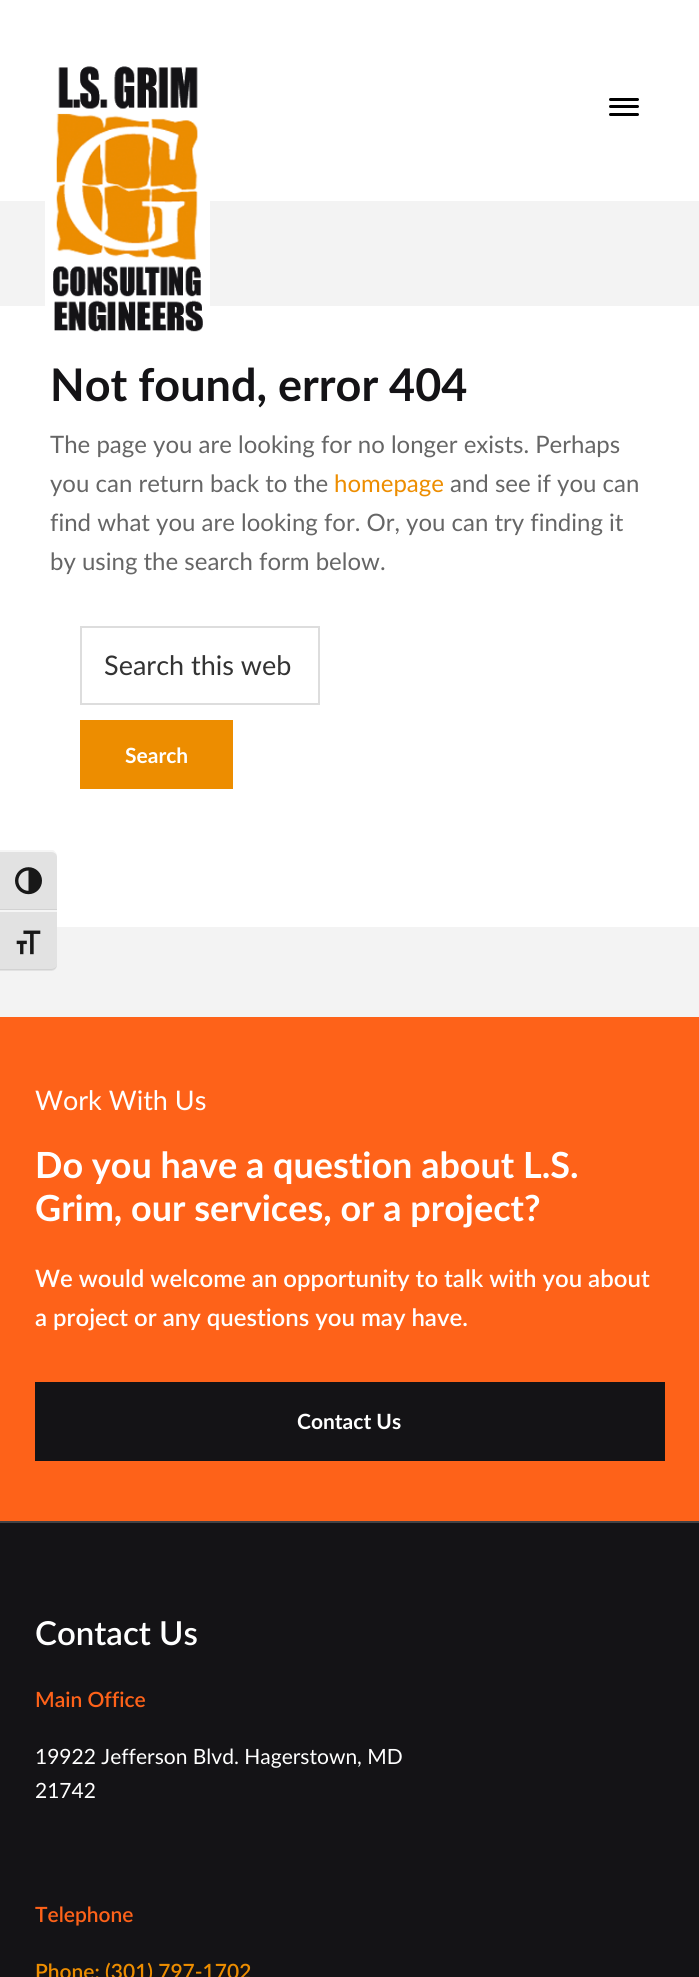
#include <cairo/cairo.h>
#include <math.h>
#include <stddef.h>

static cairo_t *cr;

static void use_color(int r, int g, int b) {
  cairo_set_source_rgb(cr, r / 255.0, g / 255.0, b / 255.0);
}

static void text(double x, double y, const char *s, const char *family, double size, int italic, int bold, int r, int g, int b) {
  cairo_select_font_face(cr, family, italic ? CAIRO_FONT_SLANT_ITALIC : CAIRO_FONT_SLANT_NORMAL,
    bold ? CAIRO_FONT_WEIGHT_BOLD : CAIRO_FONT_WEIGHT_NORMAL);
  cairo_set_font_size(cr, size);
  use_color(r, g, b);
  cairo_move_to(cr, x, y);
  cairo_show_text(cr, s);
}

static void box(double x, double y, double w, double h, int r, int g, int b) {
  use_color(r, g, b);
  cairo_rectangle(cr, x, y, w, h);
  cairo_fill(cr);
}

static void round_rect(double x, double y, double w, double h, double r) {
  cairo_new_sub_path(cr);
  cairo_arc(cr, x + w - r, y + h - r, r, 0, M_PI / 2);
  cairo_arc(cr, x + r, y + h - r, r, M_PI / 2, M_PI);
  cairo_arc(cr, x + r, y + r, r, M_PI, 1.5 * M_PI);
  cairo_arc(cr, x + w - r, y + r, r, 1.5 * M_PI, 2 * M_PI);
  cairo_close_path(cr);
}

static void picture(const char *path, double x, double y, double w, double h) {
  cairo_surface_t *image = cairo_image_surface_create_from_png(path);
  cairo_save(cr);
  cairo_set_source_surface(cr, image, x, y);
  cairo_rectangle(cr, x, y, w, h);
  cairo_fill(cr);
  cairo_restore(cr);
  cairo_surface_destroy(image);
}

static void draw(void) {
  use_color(243, 243, 243);
  cairo_paint(cr);
  box(0, 306, 699, 621, 255, 255, 255);
  use_color(226, 226, 226);
  cairo_new_path(cr);
  cairo_move_to(cr, 0, 851);
  cairo_line_to(cr, 51, 851);
  cairo_curve_to(cr, 54.5, 851, 57, 853.5, 57, 857);
  cairo_line_to(cr, 57, 911);
  cairo_line_to(cr, 0, 911);
  cairo_close_path(cr);
  cairo_fill(cr);
  use_color(245, 245, 245);
  cairo_new_path(cr);
  cairo_move_to(cr, 0, 852);
  cairo_line_to(cr, 51, 852);
  cairo_curve_to(cr, 54, 852, 57, 854, 57, 856);
  cairo_curve_to(cr, 57, 854, 55, 851, 53, 850);
  cairo_line_to(cr, 0, 850);
  cairo_close_path(cr);
  cairo_fill(cr);
  box(0, 909, 57, 1, 210, 210, 210);
  picture("img_01.png", 15, 867, 27, 28);
  use_color(226, 226, 226);
  cairo_new_path(cr);
  cairo_move_to(cr, 0, 911);
  cairo_line_to(cr, 57, 911);
  cairo_line_to(cr, 57, 965);
  cairo_curve_to(cr, 57, 968.5, 54.5, 971, 51, 971);
  cairo_line_to(cr, 0, 971);
  cairo_close_path(cr);
  cairo_fill(cr);
  box(0, 910, 57, 2, 245, 245, 245);
  use_color(210, 210, 210);
  cairo_new_path(cr);
  cairo_move_to(cr, 0, 969);
  cairo_line_to(cr, 0, 970);
  cairo_line_to(cr, 51, 970);
  cairo_curve_to(cr, 54, 970, 57, 968, 57, 964);
  cairo_curve_to(cr, 57, 967, 54, 969, 51, 969);
  cairo_close_path(cr);
  cairo_fill(cr);
  picture("img_02.png", 16, 930, 25, 25);
  box(0, 0, 699, 201, 255, 255, 255);
  picture("img_03.png", 45, 66, 165, 266);
  use_color(0, 0, 0);
  round_rect(609, 105, 30, 3, 1.5);
  cairo_fill(cr);
  round_rect(609, 98, 30, 3, 1.5);
  cairo_fill(cr);
  round_rect(609, 113, 30, 3, 1.5);
  cairo_fill(cr);
  cairo_rectangle(cr, 81, 627, 238, 77);
  use_color(221, 221, 221);
  cairo_stroke(cr);
  box(80, 720, 153, 69, 237, 141, 0);
  box(0, 1017, 699, 504, 254, 98, 25);
  box(35, 1382, 630, 79, 20, 19, 22);
  box(0, 1523, 699, 454, 20, 19, 22);
  box(0, 1521, 699, 2, 67, 66, 69);
  text(50, 401, "Not found, error 404", "Lato", 45, 0, 1, 20, 19, 22);
  text(50, 453, "The page you are looking for no longer exists. Perhaps", "Lato", 24, 0, 0, 102, 102, 102);
  text(50, 492, "you can return back to the", "Lato", 24, 0, 0, 102, 102, 102);
  text(334, 492, "homepage", "Lato", 24, 0, 0, 237, 141, 0);
  text(450, 492, "and see if you can", "Lato", 24, 0, 0, 102, 102, 102);
  text(50, 531, "find what you are looking for. Or, you can try finding it", "Lato", 24, 0, 0, 102, 102, 102);
  text(50, 570, "by using the search form below.", "Lato", 24, 0, 0, 102, 102, 102);
  text(104, 675, "Search this web", "Lato", 27, 0, 0, 51, 51, 51);
  text(125, 763, "Search", "Lato", 21, 0, 1, 255, 255, 255);
  text(35, 1110, "Work With Us", "Lato", 27, 0, 0, 255, 255, 255);
  text(35, 1178, "Do you have a question about L.S.", "Lato", 36, 0, 1, 255, 255, 255);
  text(35, 1221, "Grim, our services, or a project?", "Lato", 36, 0, 1, 255, 255, 255);
  text(35, 1287, "We would welcome an opportunity to talk with you about", "Lato SemiBold", 24, 0, 0, 255, 255, 255);
  text(35, 1326, "a project or any questions you may have.", "Lato SemiBold", 24, 0, 0, 255, 255, 255);
  text(297, 1429, "Contact Us", "Lato", 21, 0, 1, 255, 255, 255);
  text(35, 1645, "Contact Us", "Lato SemiBold", 33, 0, 0, 255, 255, 255);
  text(35, 1707, "Main Office", "Lato SemiBold", 21, 0, 0, 254, 98, 25);
  text(35, 1764, "19922 Jefferson Blvd. Hagerstown, MD", "Lato", 21, 0, 0, 255, 255, 255);
  text(35, 1798, "21742", "Lato", 21, 0, 0, 255, 255, 255);
  text(35, 1922, "Telephone", "Lato SemiBold", 21, 0, 0, 254, 98, 25);
  text(35, 1979, "Phone: (301) 797-1702", "Lato SemiBold", 21, 0, 0, 237, 141, 0);
}

int main(void) {
  cairo_surface_t *surface = cairo_image_surface_create(CAIRO_FORMAT_RGB24, 699, 1977);
  cr = cairo_create(surface);
  cairo_font_options_t *options = cairo_font_options_create();
  cairo_font_options_set_hint_metrics(options, CAIRO_HINT_METRICS_OFF);
  cairo_font_options_set_hint_style(options, CAIRO_HINT_STYLE_NONE);
  cairo_set_font_options(cr, options);
  cairo_set_miter_limit(cr, 4);
  draw();
  cairo_surface_write_to_png(surface, "out.png");
  cairo_font_options_destroy(options);
  cairo_destroy(cr);
  cairo_surface_destroy(surface);
  return 0;
}
